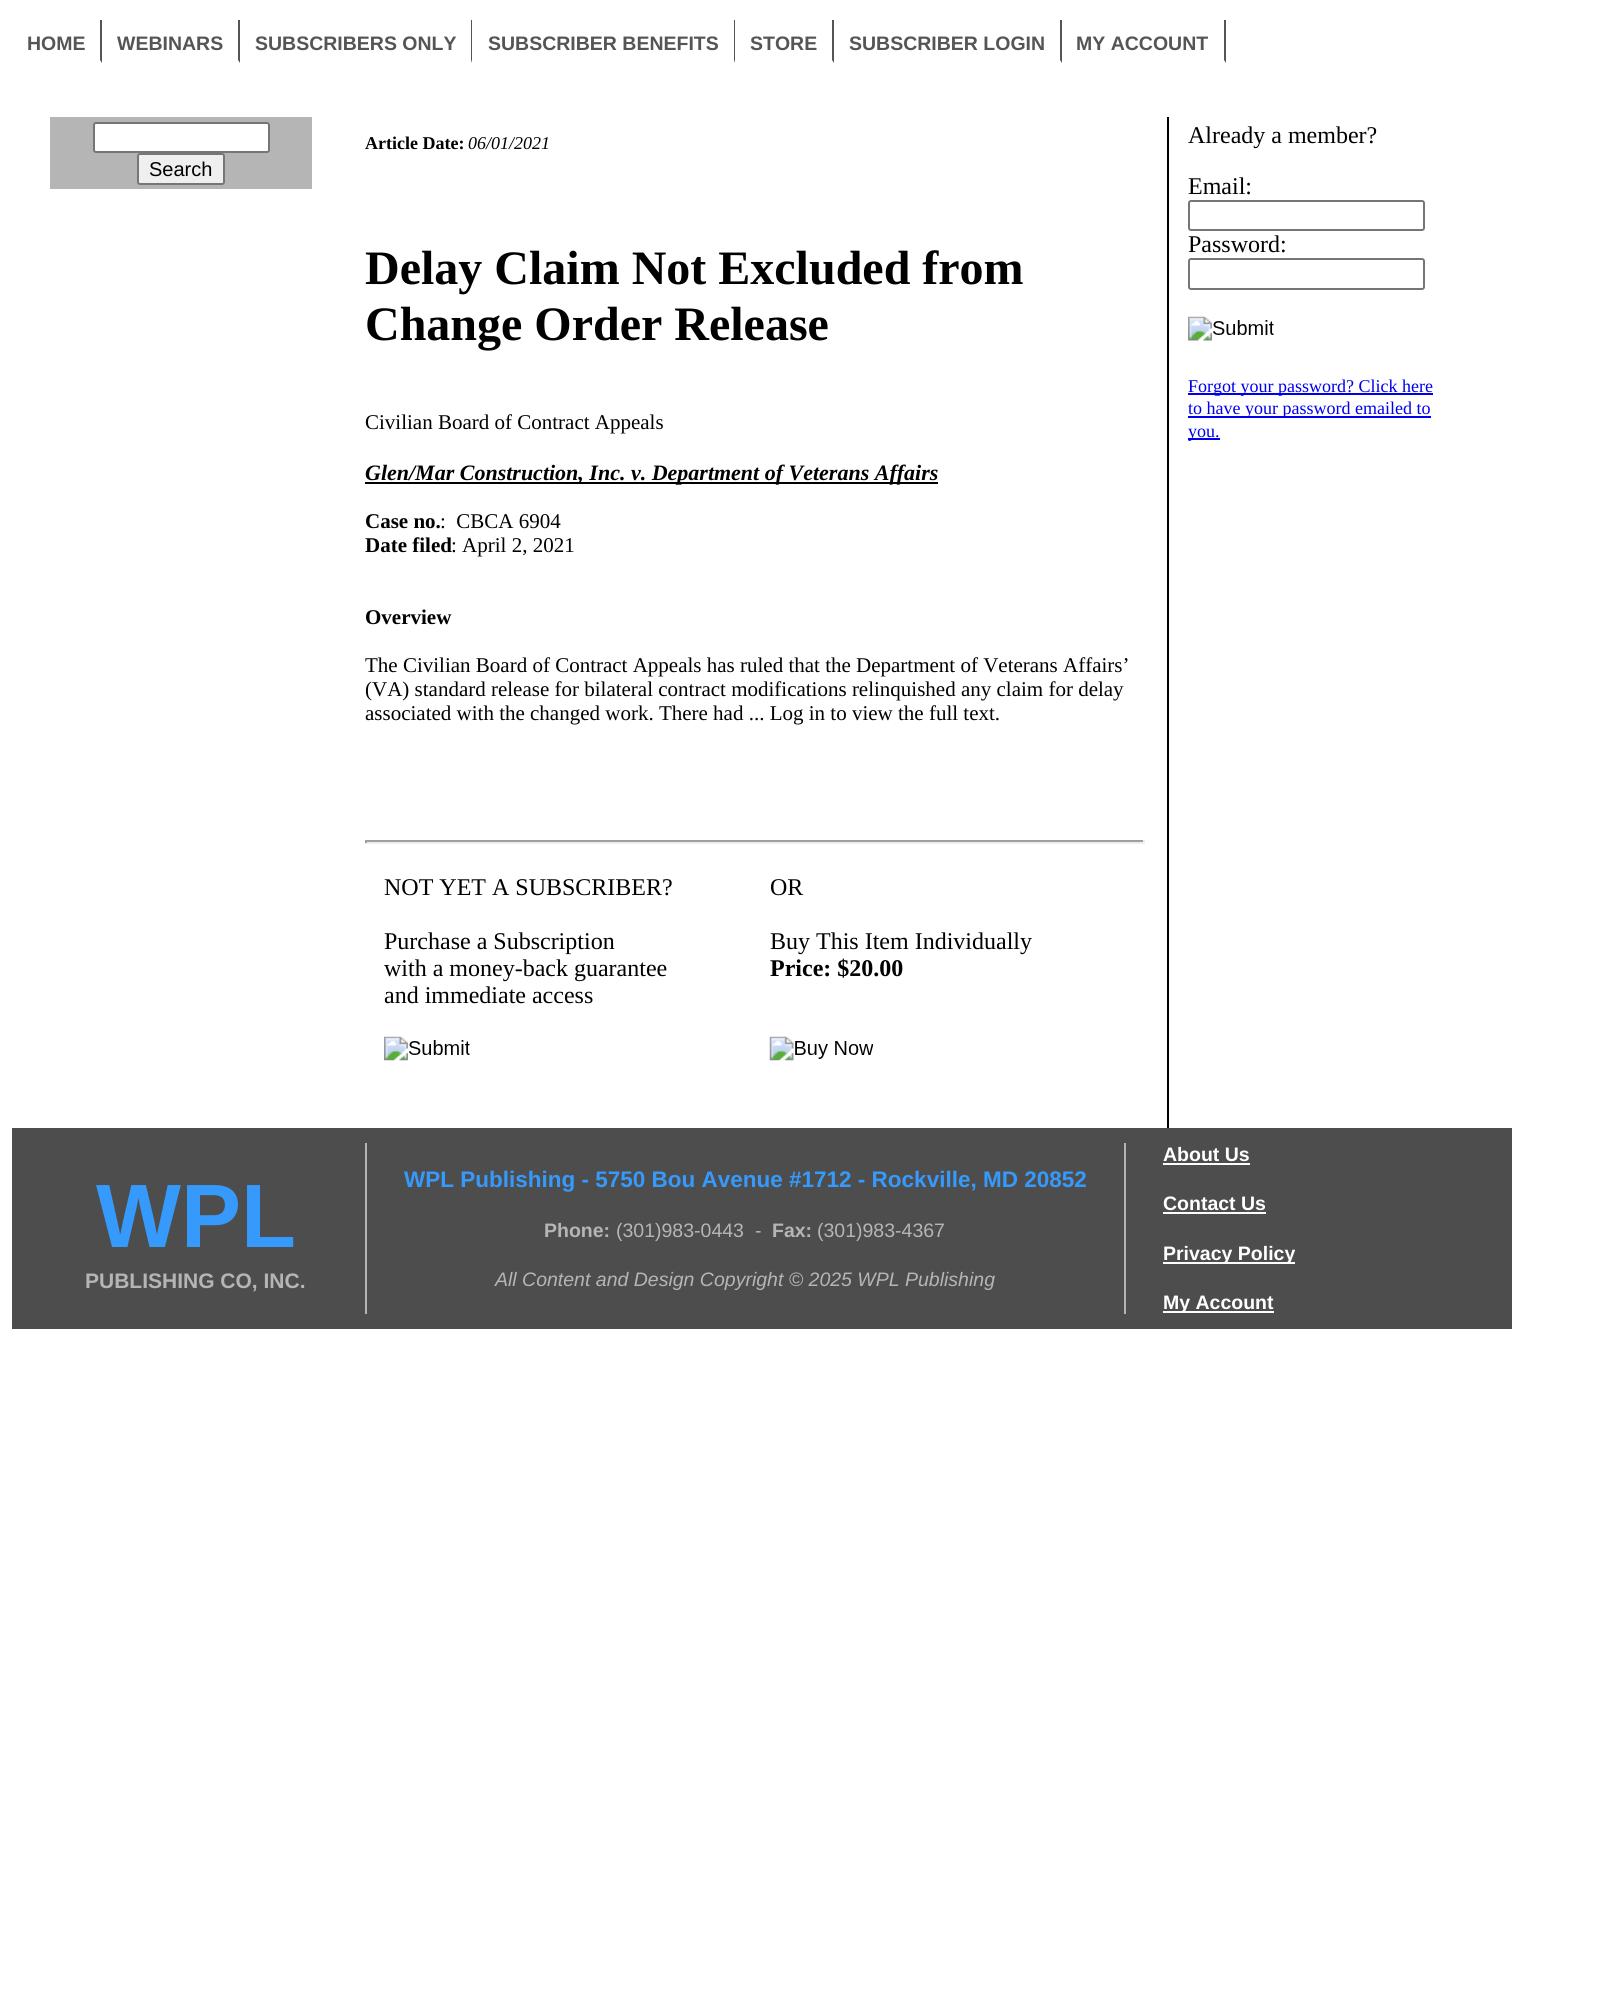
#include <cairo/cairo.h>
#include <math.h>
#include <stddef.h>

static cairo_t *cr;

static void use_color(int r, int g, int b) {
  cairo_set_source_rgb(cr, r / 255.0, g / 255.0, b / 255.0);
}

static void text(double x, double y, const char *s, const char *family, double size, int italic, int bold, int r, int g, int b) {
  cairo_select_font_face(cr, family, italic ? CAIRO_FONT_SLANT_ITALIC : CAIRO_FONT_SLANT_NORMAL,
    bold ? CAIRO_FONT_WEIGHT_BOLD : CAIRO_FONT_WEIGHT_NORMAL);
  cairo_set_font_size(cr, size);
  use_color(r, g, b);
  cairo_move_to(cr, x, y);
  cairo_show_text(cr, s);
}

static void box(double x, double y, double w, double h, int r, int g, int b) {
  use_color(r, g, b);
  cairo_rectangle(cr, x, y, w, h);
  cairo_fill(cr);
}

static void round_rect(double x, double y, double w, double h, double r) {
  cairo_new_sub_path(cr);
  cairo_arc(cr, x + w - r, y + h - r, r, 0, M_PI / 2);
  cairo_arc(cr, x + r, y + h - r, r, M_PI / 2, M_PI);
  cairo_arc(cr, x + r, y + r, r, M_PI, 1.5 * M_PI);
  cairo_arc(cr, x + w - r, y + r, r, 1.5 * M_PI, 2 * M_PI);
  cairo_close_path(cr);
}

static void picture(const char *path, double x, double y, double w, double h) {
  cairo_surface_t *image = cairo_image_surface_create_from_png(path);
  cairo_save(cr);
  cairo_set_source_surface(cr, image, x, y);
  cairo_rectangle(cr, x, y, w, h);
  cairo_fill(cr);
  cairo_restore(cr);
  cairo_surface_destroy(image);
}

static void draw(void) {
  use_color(255, 255, 255);
  cairo_paint(cr);
  use_color(85, 85, 85);
  cairo_new_path(cr);
  cairo_move_to(cr, 102, 20);
  cairo_line_to(cr, 102, 63);
  cairo_line_to(cr, 100, 60);
  cairo_line_to(cr, 100, 20);
  cairo_close_path(cr);
  cairo_fill(cr);
  cairo_new_path(cr);
  cairo_move_to(cr, 240, 20);
  cairo_line_to(cr, 240, 63);
  cairo_line_to(cr, 238, 60);
  cairo_line_to(cr, 238, 20);
  cairo_close_path(cr);
  cairo_fill(cr);
  cairo_new_path(cr);
  cairo_move_to(cr, 472, 20);
  cairo_line_to(cr, 472, 63);
  cairo_line_to(cr, 471, 60);
  cairo_line_to(cr, 471, 20);
  cairo_close_path(cr);
  cairo_fill(cr);
  cairo_new_path(cr);
  cairo_move_to(cr, 735, 20);
  cairo_line_to(cr, 735, 63);
  cairo_line_to(cr, 734, 60);
  cairo_line_to(cr, 734, 20);
  cairo_close_path(cr);
  cairo_fill(cr);
  cairo_new_path(cr);
  cairo_move_to(cr, 834, 20);
  cairo_line_to(cr, 834, 63);
  cairo_line_to(cr, 832, 60);
  cairo_line_to(cr, 832, 20);
  cairo_close_path(cr);
  cairo_fill(cr);
  cairo_new_path(cr);
  cairo_move_to(cr, 1062, 20);
  cairo_line_to(cr, 1062, 63);
  cairo_line_to(cr, 1060, 60);
  cairo_line_to(cr, 1060, 20);
  cairo_close_path(cr);
  cairo_fill(cr);
  cairo_new_path(cr);
  cairo_move_to(cr, 1226, 20);
  cairo_line_to(cr, 1226, 63);
  cairo_line_to(cr, 1224, 60);
  cairo_line_to(cr, 1224, 20);
  cairo_close_path(cr);
  cairo_fill(cr);
  box(50, 117, 262, 72, 181, 181, 181);
  use_color(255, 255, 255);
  round_rect(94, 123, 175, 29, 2);
  cairo_fill_preserve(cr);
  use_color(118, 118, 118);
  cairo_stroke(cr);
  use_color(239, 239, 239);
  round_rect(138, 154, 86, 30, 2);
  cairo_fill_preserve(cr);
  use_color(118, 118, 118);
  cairo_stroke(cr);
  box(1167, 117, 2, 1011, 0, 0, 0);
  box(365, 482, 573, 2, 0, 0, 0);
  box(365, 840, 780, 2, 159, 159, 159);
  box(1143, 840, 2, 3, 238, 238, 238);
  box(365, 842, 780, 2, 238, 238, 238);
  box(365, 840, 2, 3, 159, 159, 159);
  picture("img_01.png", 384, 1036, 86, 25);
  picture("img_02.png", 769, 1036, 104, 25);
  round_rect(1189, 201, 235, 29, 2);
  use_color(118, 118, 118);
  cairo_stroke(cr);
  round_rect(1189, 259, 235, 30, 2);
  cairo_stroke(cr);
  picture("img_03.png", 1188, 316, 86, 25);
  box(1188, 393, 245, 2, 0, 0, 238);
  box(1188, 416, 243, 2, 0, 0, 238);
  box(1188, 438, 32, 2, 0, 0, 238);
  box(12, 1128, 1500, 201, 77, 77, 77);
  box(365, 1143, 2, 171, 181, 181, 181);
  box(1124, 1143, 2, 171, 181, 181, 181);
  box(1163, 1163, 87, 2, 255, 255, 255);
  box(1163, 1212, 103, 2, 255, 255, 255);
  box(1163, 1262, 132, 2, 255, 255, 255);
  box(1163, 1311, 111, 2, 255, 255, 255);
  text(27, 50, "HOME", "Liberation Sans", 19.5, 0, 1, 85, 85, 85);
  text(117, 50, "WEBINARS", "Liberation Sans", 19.5, 0, 1, 85, 85, 85);
  text(255, 50, "SUBSCRIBERS ONLY", "Liberation Sans", 19.5, 0, 1, 85, 85, 85);
  text(488, 50, "SUBSCRIBER BENEFITS", "Liberation Sans", 19.5, 0, 1, 85, 85, 85);
  text(750, 50, "STORE", "Liberation Sans", 19.5, 0, 1, 85, 85, 85);
  text(849, 50, "SUBSCRIBER LOGIN", "Liberation Sans", 19.5, 0, 1, 85, 85, 85);
  text(1076, 50, "MY ACCOUNT", "Liberation Sans", 19.5, 0, 1, 85, 85, 85);
  text(149, 176, "Search", "Liberation Sans", 20, 0, 0, 0, 0, 0);
  text(365, 149, "Article Date:", "Liberation Serif", 18, 0, 1, 0, 0, 0);
  text(468, 149, "06/01/2021", "Liberation Serif", 18, 1, 0, 0, 0, 0);
  text(365, 284, "Delay Claim Not Excluded from", "Liberation Serif", 48, 0, 1, 0, 0, 0);
  text(365, 340, "Change Order Release", "Liberation Serif", 48, 0, 1, 0, 0, 0);
  text(365, 429, "Civilian Board of Contract Appeals", "Liberation Serif", 21, 0, 0, 0, 0, 0);
  text(365, 480, "Glen/Mar Construction, Inc. v. Department of Veterans Affairs", "Liberation Serif", 22, 1, 1, 0, 0, 0);
  text(365, 528, "Case no.", "Liberation Serif", 21, 0, 1, 0, 0, 0);
  text(440, 528, ":  CBCA 6904", "Liberation Serif", 21, 0, 0, 0, 0, 0);
  text(365, 552, "Date filed", "Liberation Serif", 21, 0, 1, 0, 0, 0);
  text(451, 552, ": April 2, 2021", "Liberation Serif", 21, 0, 0, 0, 0, 0);
  text(365, 624, "Overview", "Liberation Serif", 21, 0, 1, 0, 0, 0);
  text(365, 672, "The Civilian Board of Contract Appeals has ruled that the Department of Veterans Affairs’", "Liberation Serif", 21, 0, 0, 0, 0, 0);
  text(365, 696, "(VA) standard release for bilateral contract modifications relinquished any claim for delay", "Liberation Serif", 21, 0, 0, 0, 0, 0);
  text(365, 720, "associated with the changed work. There had ... Log in to view the full text.", "Liberation Serif", 21, 0, 0, 0, 0, 0);
  text(384, 895, "NOT YET A SUBSCRIBER?", "Liberation Serif", 24, 0, 0, 0, 0, 0);
  text(384, 949, "Purchase a Subscription", "Liberation Serif", 24, 0, 0, 0, 0, 0);
  text(384, 976, "with a money-back guarantee", "Liberation Serif", 24, 0, 0, 0, 0, 0);
  text(384, 1003, "and immediate access", "Liberation Serif", 24, 0, 0, 0, 0, 0);
  text(770, 895, "OR", "Liberation Serif", 24, 0, 0, 0, 0, 0);
  text(770, 949, "Buy This Item Individually", "Liberation Serif", 24, 0, 0, 0, 0, 0);
  text(770, 976, "Price: $20.00", "Liberation Serif", 24, 0, 1, 0, 0, 0);
  text(1188, 143, "Already a member?", "Liberation Serif", 24, 0, 0, 0, 0, 0);
  text(1188, 194, "Email:", "Liberation Serif", 24, 0, 0, 0, 0, 0);
  text(1188, 252, "Password:", "Liberation Serif", 24, 0, 0, 0, 0, 0);
  text(1188, 392, "Forgot your password? Click here", "Liberation Serif", 18, 0, 0, 0, 0, 238);
  text(1188, 414, "to have your password emailed to", "Liberation Serif", 18, 0, 0, 0, 0, 238);
  text(1188, 437, "you.", "Liberation Serif", 18, 0, 0, 0, 0, 238);
  text(96, 1247, "WPL", "Liberation Sans", 90, 0, 1, 53, 154, 251);
  text(85, 1288, "PUBLISHING CO, INC.", "Liberation Sans", 21, 0, 1, 181, 181, 181);
  text(404, 1187, "WPL Publishing - 5750 Bou Avenue #1712 - Rockville, MD 20852", "Liberation Sans", 22.5, 0, 1, 53, 154, 251);
  text(544, 1237, "Phone:", "Liberation Sans", 19.5, 0, 1, 181, 181, 181);
  text(616, 1237, "(301)983-0443", "Liberation Sans", 19.5, 0, 0, 181, 181, 181);
  text(755, 1237, "-", "Liberation Sans", 19.5, 0, 0, 181, 181, 181);
  text(772, 1237, "Fax:", "Liberation Sans", 19.5, 0, 1, 181, 181, 181);
  text(817, 1237, "(301)983-4367", "Liberation Sans", 19.5, 0, 0, 181, 181, 181);
  text(495, 1286, "All Content and Design Copyright © 2025 WPL Publishing", "Liberation Sans", 19.5, 1, 0, 181, 181, 181);
  text(1163, 1161, "About Us", "Liberation Sans", 19.5, 0, 1, 255, 255, 255);
  text(1163, 1210, "Contact Us", "Liberation Sans", 19.5, 0, 1, 255, 255, 255);
  text(1163, 1260, "Privacy Policy", "Liberation Sans", 19.5, 0, 1, 255, 255, 255);
  text(1163, 1309, "My Account", "Liberation Sans", 19.5, 0, 1, 255, 255, 255);
}

int main(void) {
  cairo_surface_t *surface = cairo_image_surface_create(CAIRO_FORMAT_RGB24, 1607, 1994);
  cr = cairo_create(surface);
  cairo_font_options_t *options = cairo_font_options_create();
  cairo_font_options_set_hint_metrics(options, CAIRO_HINT_METRICS_OFF);
  cairo_font_options_set_hint_style(options, CAIRO_HINT_STYLE_NONE);
  cairo_set_font_options(cr, options);
  cairo_set_miter_limit(cr, 4);
  draw();
  cairo_surface_write_to_png(surface, "out.png");
  cairo_font_options_destroy(options);
  cairo_destroy(cr);
  cairo_surface_destroy(surface);
  return 0;
}
